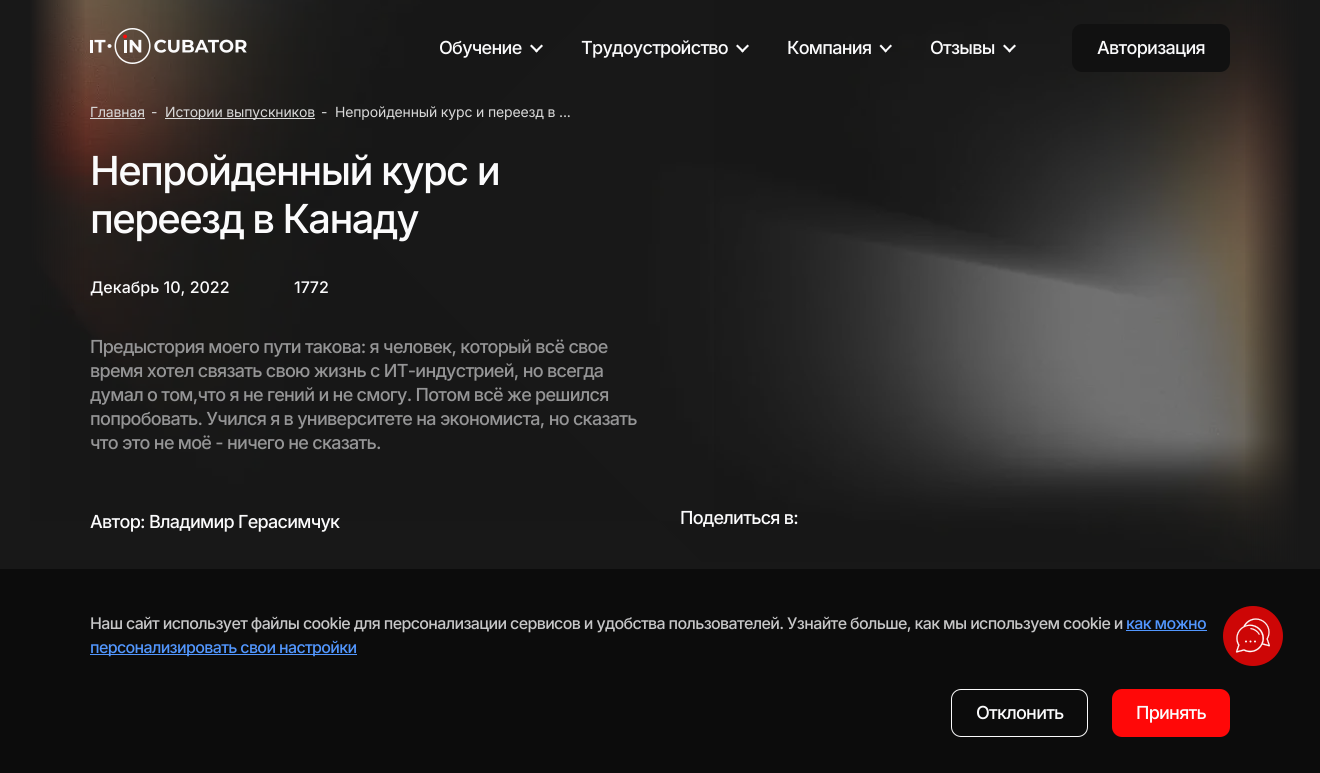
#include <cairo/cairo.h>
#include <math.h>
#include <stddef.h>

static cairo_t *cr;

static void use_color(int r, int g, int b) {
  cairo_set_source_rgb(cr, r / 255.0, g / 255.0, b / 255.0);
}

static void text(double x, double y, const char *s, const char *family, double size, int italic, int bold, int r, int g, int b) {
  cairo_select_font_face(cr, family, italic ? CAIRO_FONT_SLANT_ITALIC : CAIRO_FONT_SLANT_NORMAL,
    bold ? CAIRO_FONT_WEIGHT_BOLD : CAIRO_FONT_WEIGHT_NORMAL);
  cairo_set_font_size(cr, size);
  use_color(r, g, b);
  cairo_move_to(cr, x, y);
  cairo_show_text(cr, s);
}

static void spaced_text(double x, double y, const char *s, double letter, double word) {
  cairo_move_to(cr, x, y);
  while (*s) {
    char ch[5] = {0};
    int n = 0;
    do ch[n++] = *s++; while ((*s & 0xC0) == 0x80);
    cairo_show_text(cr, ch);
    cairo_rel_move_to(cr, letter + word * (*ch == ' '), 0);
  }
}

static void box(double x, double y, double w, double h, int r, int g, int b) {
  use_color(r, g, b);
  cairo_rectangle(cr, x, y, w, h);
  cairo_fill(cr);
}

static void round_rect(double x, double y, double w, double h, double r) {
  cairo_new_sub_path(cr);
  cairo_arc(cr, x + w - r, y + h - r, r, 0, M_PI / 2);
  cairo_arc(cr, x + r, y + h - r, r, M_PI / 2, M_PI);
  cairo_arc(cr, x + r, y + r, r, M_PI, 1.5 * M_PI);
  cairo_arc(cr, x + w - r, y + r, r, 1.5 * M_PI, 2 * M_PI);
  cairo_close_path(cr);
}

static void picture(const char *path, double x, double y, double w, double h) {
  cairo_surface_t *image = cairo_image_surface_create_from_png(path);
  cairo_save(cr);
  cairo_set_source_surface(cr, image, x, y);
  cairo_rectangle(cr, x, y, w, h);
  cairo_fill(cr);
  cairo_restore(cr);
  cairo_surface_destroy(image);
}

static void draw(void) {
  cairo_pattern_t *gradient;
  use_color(24, 24, 24);
  cairo_paint(cr);
  picture("img_02.png", 30, 0, 1270, 562);
  picture("img_01.png", 90, 28, 157, 36);
  use_color(251, 251, 252);
  cairo_new_path(cr);
  cairo_move_to(cr, 541.5, 44.5);
  cairo_line_to(cr, 543, 46);
  cairo_line_to(cr, 536.5, 52.5);
  cairo_line_to(cr, 535, 51);
  cairo_close_path(cr);
  cairo_fill(cr);
  cairo_new_path(cr);
  cairo_move_to(cr, 531.5, 44.5);
  cairo_line_to(cr, 538, 51);
  cairo_line_to(cr, 536.5, 52.5);
  cairo_line_to(cr, 530, 46);
  cairo_close_path(cr);
  cairo_fill(cr);
  cairo_new_path(cr);
  cairo_move_to(cr, 747.5, 44.5);
  cairo_line_to(cr, 749, 46);
  cairo_line_to(cr, 742.5, 52.5);
  cairo_line_to(cr, 741, 51);
  cairo_close_path(cr);
  cairo_fill(cr);
  cairo_new_path(cr);
  cairo_move_to(cr, 737.5, 44.5);
  cairo_line_to(cr, 744, 51);
  cairo_line_to(cr, 742.5, 52.5);
  cairo_line_to(cr, 736, 46);
  cairo_close_path(cr);
  cairo_fill(cr);
  cairo_new_path(cr);
  cairo_move_to(cr, 890.5, 44.5);
  cairo_line_to(cr, 892, 46);
  cairo_line_to(cr, 885.5, 52.5);
  cairo_line_to(cr, 884.5, 51);
  cairo_close_path(cr);
  cairo_fill(cr);
  cairo_new_path(cr);
  cairo_move_to(cr, 881, 44.5);
  cairo_line_to(cr, 887, 51);
  cairo_line_to(cr, 885.5, 52.5);
  cairo_line_to(cr, 879.5, 46);
  cairo_close_path(cr);
  cairo_fill(cr);
  cairo_new_path(cr);
  cairo_move_to(cr, 1014.5, 44.5);
  cairo_line_to(cr, 1016, 46);
  cairo_line_to(cr, 1009.5, 52.5);
  cairo_line_to(cr, 1008, 51);
  cairo_close_path(cr);
  cairo_fill(cr);
  cairo_new_path(cr);
  cairo_move_to(cr, 1004.5, 44.5);
  cairo_line_to(cr, 1011, 51);
  cairo_line_to(cr, 1009.5, 52.5);
  cairo_line_to(cr, 1003, 46);
  cairo_close_path(cr);
  cairo_fill(cr);
  use_color(17, 17, 17);
  round_rect(1072, 24, 158, 48, 10);
  cairo_fill(cr);
  gradient = cairo_pattern_create_linear(10, 359, 138, 359);
  cairo_pattern_add_color_stop_rgba(gradient, 0.15, 0.094, 0.094, 0.094, 1);
  cairo_pattern_add_color_stop_rgba(gradient, 0.6, 0.094, 0.094, 0.094, 0);
  cairo_set_source(cr, gradient);
  cairo_pattern_destroy(gradient);
  cairo_rectangle(cr, 30, 0, 55, 305);
  cairo_fill(cr);
  gradient = cairo_pattern_create_linear(1320, 359, 1192, 359);
  cairo_pattern_add_color_stop_rgba(gradient, 0.15, 0.094, 0.094, 0.094, 1);
  cairo_pattern_add_color_stop_rgba(gradient, 0.6, 0.094, 0.094, 0.094, 0);
  cairo_set_source(cr, gradient);
  cairo_pattern_destroy(gradient);
  cairo_rectangle(cr, 1245, 0, 55, 562);
  cairo_fill(cr);
  box(90, 118, 55, 1, 217, 217, 217);
  box(165, 118, 150, 1, 217, 217, 217);
  box(0, 569, 1320, 204, 12, 12, 12);
  box(1126, 630, 81, 1, 82, 151, 255);
  box(90, 654, 267, 1, 82, 151, 255);
  round_rect(951.5, 689.5, 136, 47, 9.5);
  use_color(251, 251, 252);
  cairo_set_line_width(cr, 1);
  cairo_stroke(cr);
  use_color(255, 8, 8);
  round_rect(1112, 689, 118, 48, 10);
  cairo_fill(cr);
  use_color(205, 6, 6);
  cairo_arc(cr, 1253, 636, 30, 0, 2 * M_PI);
  cairo_fill(cr);
  picture("img_03.png", 1235, 618, 35, 35);
  cairo_select_font_face(cr, "Inter Medium", CAIRO_FONT_SLANT_NORMAL, CAIRO_FONT_WEIGHT_NORMAL);
  cairo_set_font_size(cr, 18);
  use_color(251, 251, 252);
  spaced_text(439, 54, "Обучение", -0.72, 0);
  spaced_text(581, 54, "Трудоустройство", -0.72, 0);
  spaced_text(787, 54, "Компания", -0.72, 0);
  spaced_text(930, 54, "Отзывы", -0.72, 0);
  spaced_text(1097, 54, "Авторизация", -0.72, 0);
  cairo_select_font_face(cr, "Inter", CAIRO_FONT_SLANT_NORMAL, CAIRO_FONT_WEIGHT_NORMAL);
  cairo_set_font_size(cr, 14);
  use_color(217, 217, 217);
  spaced_text(90, 117, "Главная", -0.15, 0);
  spaced_text(151, 117, "-", -0.15, 0);
  spaced_text(165, 117, "Истории выпускников", -0.15, 0);
  spaced_text(321, 117, "-", -0.15, 0);
  spaced_text(335, 117, "Непройденный курс и переезд в ...", -0.15, 0);
  cairo_select_font_face(cr, "Inter Medium", CAIRO_FONT_SLANT_NORMAL, CAIRO_FONT_WEIGHT_NORMAL);
  cairo_set_font_size(cr, 40);
  use_color(251, 251, 252);
  spaced_text(90, 185, "Непройденный курс и", -1.6, 0);
  spaced_text(90, 233, "переезд в Канаду", -1.6, 0);
  text(90, 293, "Декабрь 10, 2022", "Inter Medium", 16, 0, 0, 251, 251, 252);
  text(294, 293, "1772", "Inter Medium", 16, 0, 0, 251, 251, 252);
  cairo_set_font_size(cr, 18);
  use_color(149, 149, 150);
  spaced_text(90, 353, "Предыстория моего пути такова: я человек, который всё свое", -0.72, 0);
  spaced_text(90, 377, "время хотел связать свою жизнь с ИТ-индустрией, но всегда", -0.72, 0);
  spaced_text(90, 401, "думал о том,что я не гений и не смогу. Потом всё же решился", -0.72, 0);
  spaced_text(90, 425, "попробовать. Учился я в университете на экономиста, но сказать", -0.72, 0);
  spaced_text(90, 449, "что это не моё - ничего не сказать.", -0.72, 0);
  use_color(251, 251, 252);
  spaced_text(90, 528, "Автор: Владимир Герасимчук", -0.72, 0);
  spaced_text(680, 524, "Поделиться в:", -0.72, 0);
  cairo_set_font_size(cr, 16);
  use_color(199, 199, 200);
  spaced_text(90, 629, "Наш сайт использует файлы cookie для персонализации сервисов и удобства пользователей. Узнайте больше, как мы используем cookie и", -0.64, 0);
  use_color(82, 151, 255);
  spaced_text(1126, 629, "как можно", -0.64, 0);
  spaced_text(90, 653, "персонализировать свои настройки", -0.64, 0);
  cairo_set_font_size(cr, 18);
  use_color(251, 251, 252);
  spaced_text(976, 719, "Отклонить", -0.75, 0);
  spaced_text(1136, 719, "Принять", -0.75, 0);
}

int main(void) {
  cairo_surface_t *surface = cairo_image_surface_create(CAIRO_FORMAT_RGB24, 1320, 773);
  cr = cairo_create(surface);
  cairo_font_options_t *options = cairo_font_options_create();
  cairo_font_options_set_hint_metrics(options, CAIRO_HINT_METRICS_OFF);
  cairo_font_options_set_hint_style(options, CAIRO_HINT_STYLE_NONE);
  cairo_set_font_options(cr, options);
  cairo_set_miter_limit(cr, 4);
  draw();
  cairo_surface_write_to_png(surface, "out.png");
  cairo_font_options_destroy(options);
  cairo_destroy(cr);
  cairo_surface_destroy(surface);
  return 0;
}
